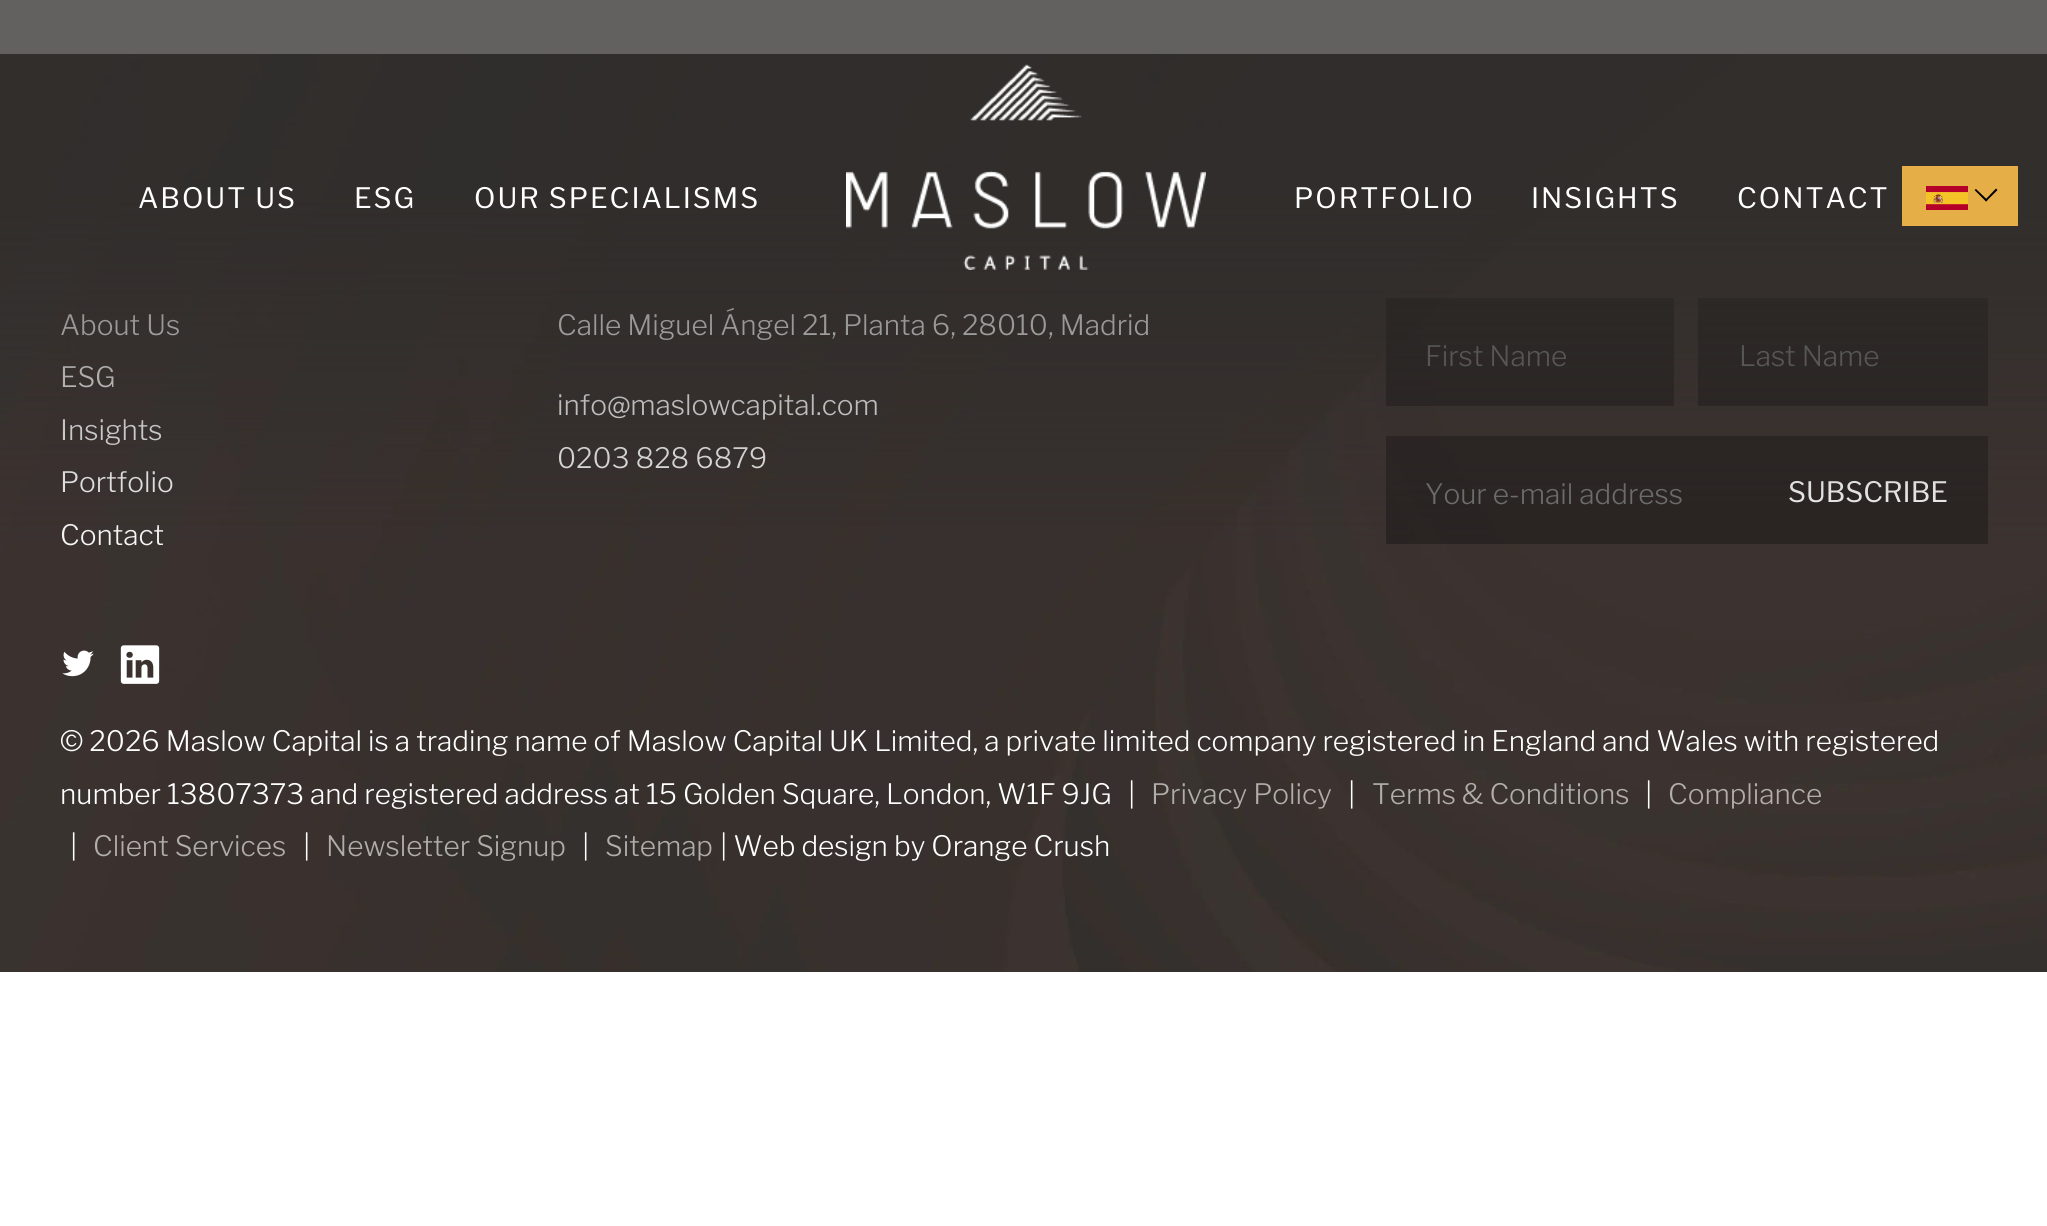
#include <cairo/cairo.h>
#include <math.h>
#include <stddef.h>

static cairo_t *cr;

static void use_color(int r, int g, int b) {
  cairo_set_source_rgb(cr, r / 255.0, g / 255.0, b / 255.0);
}

static void text(double x, double y, const char *s, const char *family, double size, int italic, int bold, int r, int g, int b) {
  cairo_select_font_face(cr, family, italic ? CAIRO_FONT_SLANT_ITALIC : CAIRO_FONT_SLANT_NORMAL,
    bold ? CAIRO_FONT_WEIGHT_BOLD : CAIRO_FONT_WEIGHT_NORMAL);
  cairo_set_font_size(cr, size);
  use_color(r, g, b);
  cairo_move_to(cr, x, y);
  cairo_show_text(cr, s);
}

static void spaced_text(double x, double y, const char *s, double letter, double word) {
  cairo_move_to(cr, x, y);
  while (*s) {
    char ch[5] = {0};
    int n = 0;
    do ch[n++] = *s++; while ((*s & 0xC0) == 0x80);
    cairo_show_text(cr, ch);
    cairo_rel_move_to(cr, letter + word * (*ch == ' '), 0);
  }
}

static void box(double x, double y, double w, double h, int r, int g, int b) {
  use_color(r, g, b);
  cairo_rectangle(cr, x, y, w, h);
  cairo_fill(cr);
}

static void picture(const char *path, double x, double y, double w, double h) {
  cairo_surface_t *image = cairo_image_surface_create_from_png(path);
  cairo_save(cr);
  cairo_set_source_surface(cr, image, x, y);
  cairo_rectangle(cr, x, y, w, h);
  cairo_fill(cr);
  cairo_restore(cr);
  cairo_surface_destroy(image);
}

static void draw(void) {
  cairo_pattern_t *gradient;
  use_color(255, 255, 255);
  cairo_paint(cr);
  picture("img_03.png", 0, 54, 2047, 918);
  cairo_set_source_rgba(cr, 0, 0, 0, 0.3);
  cairo_rectangle(cr, 1386, 298, 288, 108);
  cairo_fill(cr);
  box(1698, 298, 290, 108, 42, 36, 34);
  cairo_set_source_rgba(cr, 0, 0, 0, 0.3);
  cairo_rectangle(cr, 1386, 436, 602, 108);
  cairo_fill(cr);
  picture("img_04.png", 62, 650, 32, 27);
  picture("img_05.png", 120, 645, 40, 39);
  text(60, 335, "About Us", "Libre Franklin Light", 28, 0, 0, 255, 255, 255);
  text(60, 387, "ESG", "Libre Franklin Light", 28, 0, 0, 255, 255, 255);
  text(60, 440, "Insights", "Libre Franklin Light", 28, 0, 0, 255, 255, 255);
  text(60, 492, "Portfolio", "Libre Franklin Light", 28, 0, 0, 255, 255, 255);
  text(60, 545, "Contact", "Libre Franklin Light", 28, 0, 0, 255, 255, 255);
  text(557, 335, "Calle Miguel Ángel 21, Planta 6, 28010, Madrid", "Libre Franklin Light", 28, 0, 0, 255, 255, 255);
  text(557, 415, "info@maslowcapital.com", "Libre Franklin Light", 28, 0, 0, 255, 255, 255);
  text(557, 468, "0203 828 6879", "Libre Franklin Light", 28, 0, 0, 255, 255, 255);
  text(1425, 366, "First Name", "Libre Franklin Light", 28, 0, 0, 117, 117, 117);
  text(1739, 366, "Last Name", "Libre Franklin Light", 28, 0, 0, 117, 117, 117);
  text(1425, 504, "Your e-mail address", "Libre Franklin Light", 28, 0, 0, 117, 117, 117);
  text(1788, 502, "SUBSCRIBE", "Libre Franklin", 28, 0, 0, 255, 255, 255);
  gradient = cairo_pattern_create_linear(1024, 0, 1024, 560);
  cairo_pattern_add_color_stop_rgba(gradient, 0, 0.18, 0.173, 0.165, 0.75);
  cairo_pattern_add_color_stop_rgba(gradient, 0.35, 0.18, 0.173, 0.165, 0.75);
  cairo_pattern_add_color_stop_rgba(gradient, 1, 0.18, 0.173, 0.165, 0);
  cairo_set_source(cr, gradient);
  cairo_pattern_destroy(gradient);
  cairo_rectangle(cr, 0, 0, 2047, 545);
  cairo_fill(cr);
  box(1902, 166, 116, 60, 230, 174, 70);
  picture("img_02.png", 1926, 186, 42, 24);
  use_color(0, 0, 0);
  cairo_new_path(cr);
  cairo_move_to(cr, 1997.5, 190);
  cairo_line_to(cr, 1986, 201.5);
  cairo_line_to(cr, 1985, 200);
  cairo_line_to(cr, 1996, 188.5);
  cairo_close_path(cr);
  cairo_fill(cr);
  cairo_new_path(cr);
  cairo_move_to(cr, 1987.5, 200);
  cairo_line_to(cr, 1986, 201.5);
  cairo_line_to(cr, 1974.5, 190);
  cairo_line_to(cr, 1976, 189);
  cairo_close_path(cr);
  cairo_fill(cr);
  use_color(255, 255, 255);
  spaced_text(1737, 208, "CONTACT", 2, 0);
  spaced_text(1531, 208, "INSIGHTS", 2, 0);
  spaced_text(1294, 208, "PORTFOLIO", 2, 0);
  picture("img_01.png", 846, 64, 360, 206);
  spaced_text(474, 208, "OUR SPECIALISMS", 2, 0);
  spaced_text(354, 208, "ESG", 2, 0);
  spaced_text(138, 208, "ABOUT US", 2, 0);
  text(60, 751, "© 2026 Maslow Capital is a trading name of Maslow Capital UK Limited, a private limited company registered in England and Wales with registered", "Libre Franklin Light", 28, 0, 0, 255, 255, 255);
  text(1128, 804, "|", "Libre Franklin Light", 28, 0, 0, 255, 255, 255);
  text(1151, 804, "Privacy Policy", "Libre Franklin Light", 28, 0, 0, 176, 173, 171);
  text(1348, 804, "|", "Libre Franklin Light", 28, 0, 0, 255, 255, 255);
  text(1372, 804, "Terms & Conditions", "Libre Franklin Light", 28, 0, 0, 176, 173, 171);
  text(1645, 804, "|", "Libre Franklin Light", 28, 0, 0, 255, 255, 255);
  text(1668, 804, "Compliance", "Libre Franklin Light", 28, 0, 0, 176, 173, 171);
  text(70, 856, "|", "Libre Franklin Light", 28, 0, 0, 255, 255, 255);
  text(93, 856, "Client Services", "Libre Franklin Light", 28, 0, 0, 176, 173, 171);
  text(303, 856, "|", "Libre Franklin Light", 28, 0, 0, 255, 255, 255);
  text(326, 856, "Newsletter Signup", "Libre Franklin Light", 28, 0, 0, 176, 173, 171);
  text(582, 856, "|", "Libre Franklin Light", 28, 0, 0, 255, 255, 255);
  text(605, 856, "Sitemap", "Libre Franklin Light", 28, 0, 0, 176, 173, 171);
  text(60, 804, "number 13807373 and registered address at 15 Golden Square, London, W1F 9JG", "Libre Franklin Light", 28, 0, 0, 255, 255, 255);
  text(720, 856, "| Web design", "Libre Franklin Light", 28, 0, 0, 255, 255, 255);
  text(894, 856, "by Orange Crush", "Libre Franklin Light", 28, 0, 0, 255, 255, 255);
}

int main(void) {
  cairo_surface_t *surface = cairo_image_surface_create(CAIRO_FORMAT_RGB24, 2047, 1226);
  cr = cairo_create(surface);
  cairo_font_options_t *options = cairo_font_options_create();
  cairo_font_options_set_hint_metrics(options, CAIRO_HINT_METRICS_OFF);
  cairo_font_options_set_hint_style(options, CAIRO_HINT_STYLE_NONE);
  cairo_set_font_options(cr, options);
  cairo_set_miter_limit(cr, 4);
  draw();
  cairo_surface_write_to_png(surface, "out.png");
  cairo_font_options_destroy(options);
  cairo_destroy(cr);
  cairo_surface_destroy(surface);
  return 0;
}
